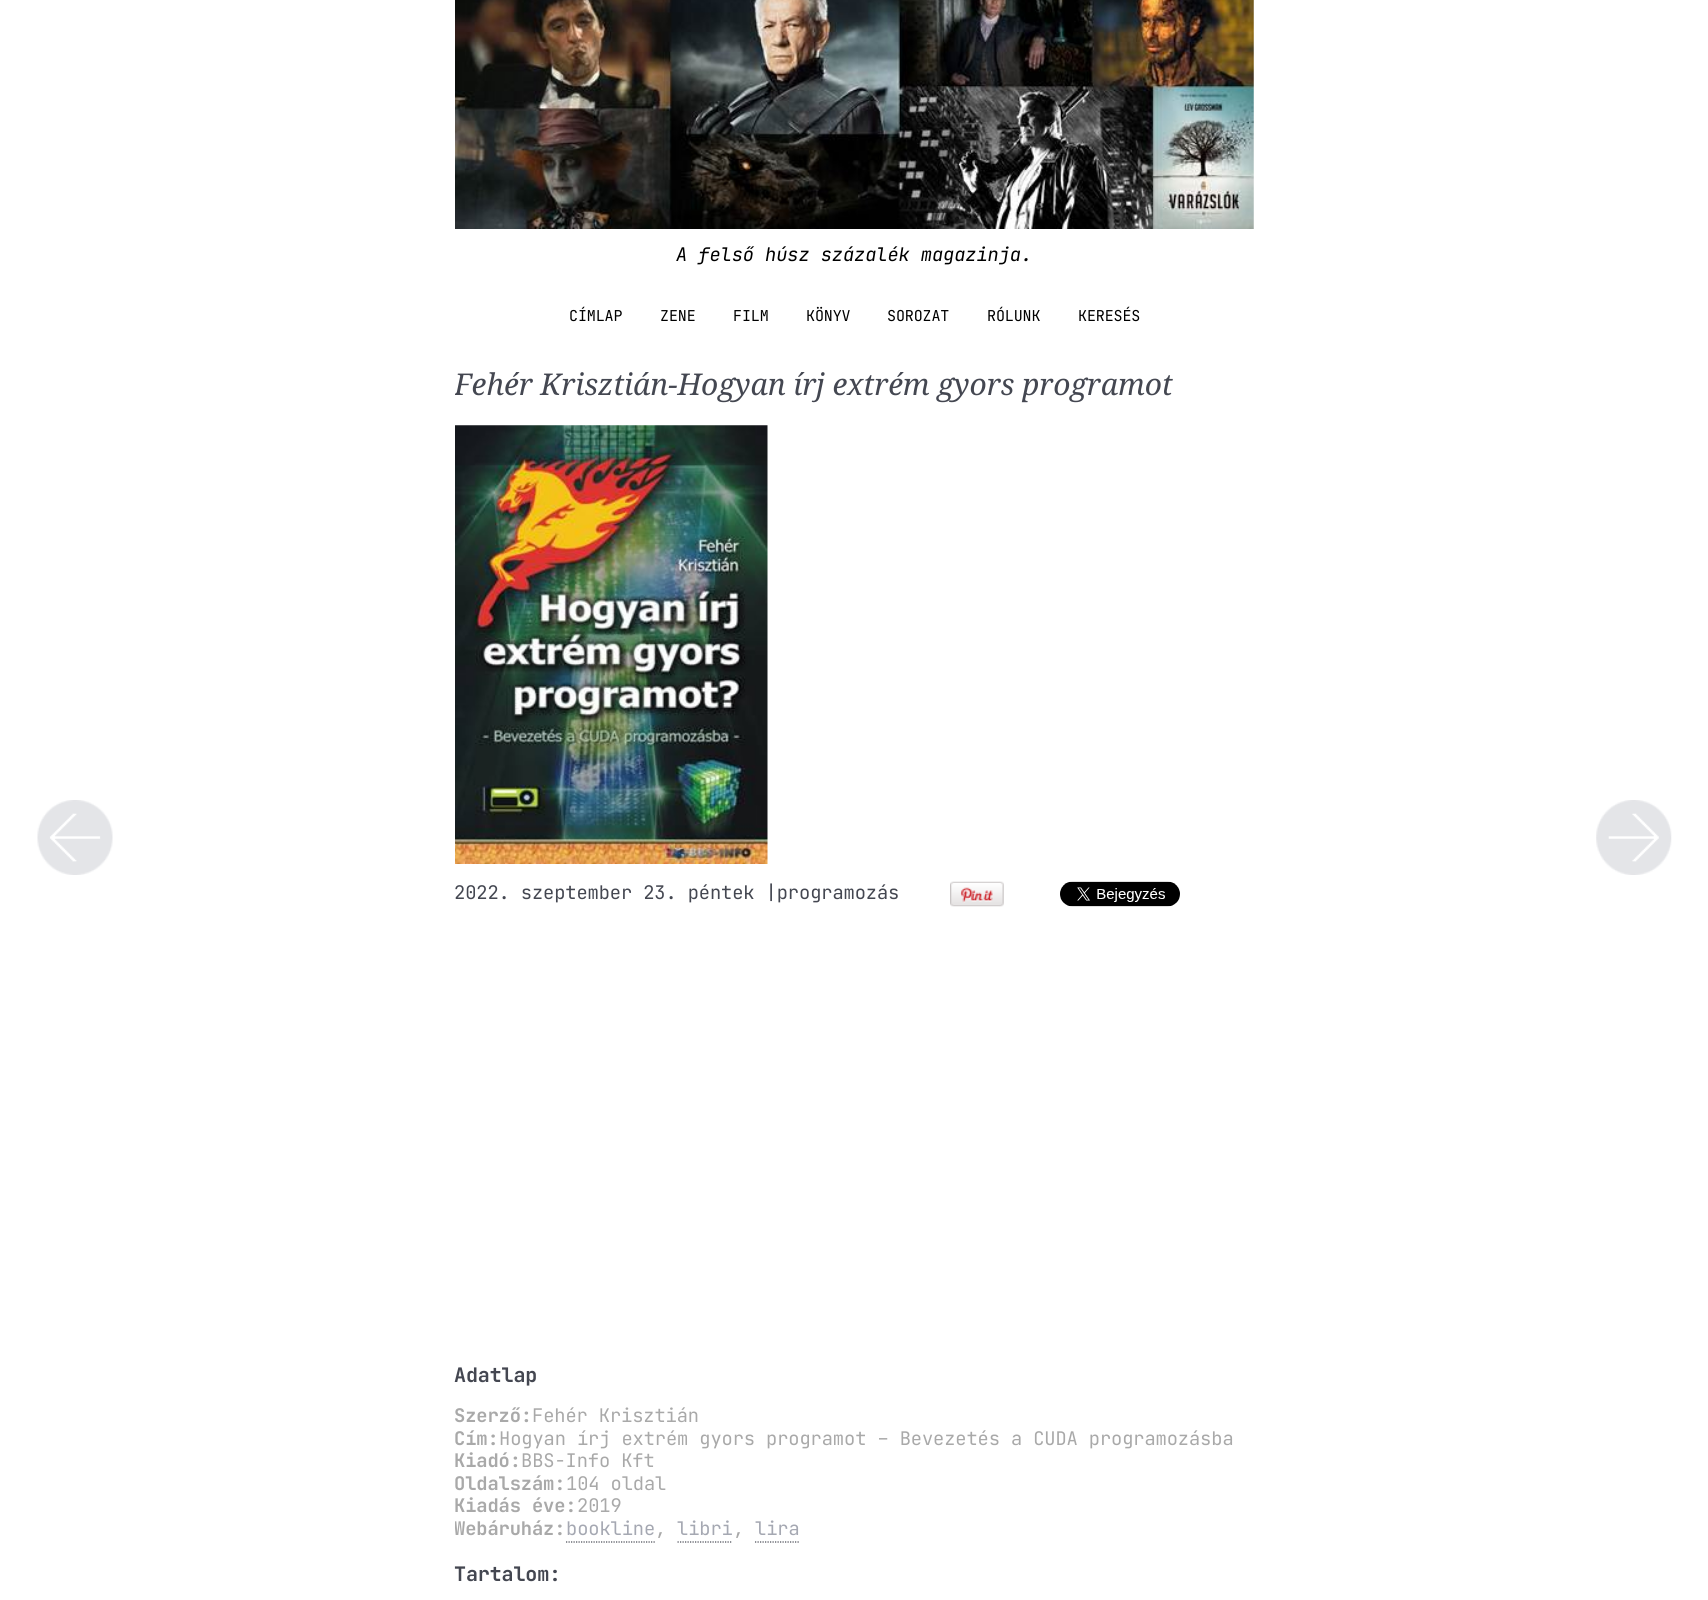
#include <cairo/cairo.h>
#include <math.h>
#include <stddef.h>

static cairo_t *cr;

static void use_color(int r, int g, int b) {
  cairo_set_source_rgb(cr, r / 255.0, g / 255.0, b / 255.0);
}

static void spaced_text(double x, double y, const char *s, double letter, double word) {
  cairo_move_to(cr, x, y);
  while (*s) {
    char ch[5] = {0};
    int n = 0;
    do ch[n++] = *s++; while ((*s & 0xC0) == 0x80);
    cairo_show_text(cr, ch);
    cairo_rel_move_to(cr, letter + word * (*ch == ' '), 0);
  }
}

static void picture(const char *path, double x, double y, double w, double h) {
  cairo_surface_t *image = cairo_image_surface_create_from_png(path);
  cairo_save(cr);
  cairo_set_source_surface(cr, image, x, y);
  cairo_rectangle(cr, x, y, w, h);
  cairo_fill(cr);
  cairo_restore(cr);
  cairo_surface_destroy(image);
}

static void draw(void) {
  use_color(255, 255, 255);
  cairo_paint(cr);
  picture("img_01.png", 455, 0, 799, 229);
  picture("img_02.png", 37, 800, 76, 75);
  picture("img_03.png", 455, 425, 313, 439);
  picture("img_04.png", 1596, 800, 76, 75);
  picture("img_05.png", 950, 881, 54, 26);
  picture("img_06.png", 1060, 881, 120, 26);
  cairo_new_path(cr);
  cairo_move_to(cr, 566, 1542);
  cairo_line_to(cr, 655, 1542);
  use_color(68, 71, 81);
  cairo_set_line_width(cr, 1.2);
  cairo_set_dash(cr, (double[]){1.25, 1.25}, 2, 0);
  cairo_stroke(cr);
  cairo_new_path(cr);
  cairo_move_to(cr, 677.5, 1542);
  cairo_line_to(cr, 732.5, 1542);
  cairo_stroke(cr);
  cairo_new_path(cr);
  cairo_move_to(cr, 755, 1542);
  cairo_line_to(cr, 799, 1542);
  cairo_stroke(cr);
  cairo_select_font_face(cr, "JetBrains Mono", CAIRO_FONT_SLANT_ITALIC, CAIRO_FONT_WEIGHT_NORMAL);
  cairo_set_font_size(cr, 18.75);
  use_color(0, 0, 0);
  spaced_text(676, 261, "A felső húsz százalék magazinja.", -0.12, 0);
  cairo_select_font_face(cr, "JetBrains Mono", CAIRO_FONT_SLANT_NORMAL, CAIRO_FONT_WEIGHT_NORMAL);
  cairo_set_font_size(cr, 15);
  spaced_text(569, 321, "CÍMLAP", -0.12, 0);
  spaced_text(660, 321, "ZENE", -0.12, 0);
  spaced_text(733, 321, "FILM", -0.12, 0);
  spaced_text(806, 321, "KÖNYV", -0.12, 0);
  spaced_text(887, 321, "SOROZAT", -0.12, 0);
  spaced_text(987, 321, "RÓLUNK", -0.12, 0);
  spaced_text(1078, 321, "KERESÉS", -0.12, 0);
  cairo_save(cr);
  cairo_rectangle(cr, 455, 370, 800, 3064);
  cairo_clip(cr);
  cairo_select_font_face(cr, "Droid Serif", CAIRO_FONT_SLANT_ITALIC, CAIRO_FONT_WEIGHT_NORMAL);
  cairo_set_font_size(cr, 30);
  use_color(68, 71, 81);
  spaced_text(454, 395, "Fehér Krisztián-Hogyan írj extrém gyors programot", -0.12, 0);
  cairo_restore(cr);
  cairo_set_font_size(cr, 18.75);
  use_color(68, 71, 81);
  spaced_text(454, 899, "2022. szeptember 23. péntek |programozás", -0.12, 0);
  cairo_select_font_face(cr, "JetBrains Mono", CAIRO_FONT_SLANT_NORMAL, CAIRO_FONT_WEIGHT_BOLD);
  cairo_set_font_size(cr, 20);
  spaced_text(454, 1382, "Adatlap", -0.12, 0);
  cairo_set_font_size(cr, 18.75);
  use_color(169, 169, 169);
  spaced_text(454, 1422, "Szerző:", -0.12, 0);
  cairo_select_font_face(cr, "JetBrains Mono", CAIRO_FONT_SLANT_NORMAL, CAIRO_FONT_WEIGHT_NORMAL);
  spaced_text(532, 1422, "Fehér Krisztián", -0.12, 0);
  cairo_select_font_face(cr, "JetBrains Mono", CAIRO_FONT_SLANT_NORMAL, CAIRO_FONT_WEIGHT_BOLD);
  spaced_text(454, 1445, "Cím:", -0.12, 0);
  cairo_select_font_face(cr, "JetBrains Mono", CAIRO_FONT_SLANT_NORMAL, CAIRO_FONT_WEIGHT_NORMAL);
  spaced_text(499, 1445, "Hogyan írj extrém gyors programot – Bevezetés a CUDA programozásba", -0.12, 0);
  cairo_select_font_face(cr, "JetBrains Mono", CAIRO_FONT_SLANT_NORMAL, CAIRO_FONT_WEIGHT_BOLD);
  spaced_text(454, 1467, "Kiadó:", -0.12, 0);
  cairo_select_font_face(cr, "JetBrains Mono", CAIRO_FONT_SLANT_NORMAL, CAIRO_FONT_WEIGHT_NORMAL);
  spaced_text(521, 1467, "BBS-Info Kft", -0.12, 0);
  cairo_select_font_face(cr, "JetBrains Mono", CAIRO_FONT_SLANT_NORMAL, CAIRO_FONT_WEIGHT_BOLD);
  spaced_text(454, 1490, "Oldalszám:", -0.12, 0);
  cairo_select_font_face(cr, "JetBrains Mono", CAIRO_FONT_SLANT_NORMAL, CAIRO_FONT_WEIGHT_NORMAL);
  spaced_text(566, 1490, "104 oldal", -0.12, 0);
  cairo_select_font_face(cr, "JetBrains Mono", CAIRO_FONT_SLANT_NORMAL, CAIRO_FONT_WEIGHT_BOLD);
  spaced_text(454, 1512, "Kiadás éve:", -0.12, 0);
  cairo_select_font_face(cr, "JetBrains Mono", CAIRO_FONT_SLANT_NORMAL, CAIRO_FONT_WEIGHT_NORMAL);
  spaced_text(577, 1512, "2019", -0.12, 0);
  cairo_save(cr);
  cairo_rectangle(cr, 455, 370, 800, 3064);
  cairo_clip(cr);
  cairo_select_font_face(cr, "JetBrains Mono", CAIRO_FONT_SLANT_NORMAL, CAIRO_FONT_WEIGHT_BOLD);
  spaced_text(454, 1535, "Webáruház:", -0.12, 0);
  cairo_restore(cr);
  use_color(165, 168, 178);
  spaced_text(566, 1535, "bookline", -0.12, 0);
  use_color(169, 169, 169);
  spaced_text(655, 1535, ",", -0.12, 0);
  use_color(165, 168, 178);
  spaced_text(677, 1535, "libri", -0.12, 0);
  use_color(169, 169, 169);
  spaced_text(733, 1535, ",", -0.12, 0);
  use_color(165, 168, 178);
  spaced_text(755, 1535, "lira", -0.12, 0);
  cairo_select_font_face(cr, "JetBrains Mono", CAIRO_FONT_SLANT_NORMAL, CAIRO_FONT_WEIGHT_BOLD);
  cairo_set_font_size(cr, 20);
  use_color(68, 71, 81);
  spaced_text(454, 1581, "Tartalom:", -0.12, 0);
}

int main(void) {
  cairo_surface_t *surface = cairo_image_surface_create(CAIRO_FORMAT_RGB24, 1708, 1600);
  cr = cairo_create(surface);
  cairo_font_options_t *options = cairo_font_options_create();
  cairo_font_options_set_hint_metrics(options, CAIRO_HINT_METRICS_OFF);
  cairo_font_options_set_hint_style(options, CAIRO_HINT_STYLE_NONE);
  cairo_set_font_options(cr, options);
  cairo_set_miter_limit(cr, 4);
  draw();
  cairo_surface_write_to_png(surface, "out.png");
  cairo_font_options_destroy(options);
  cairo_destroy(cr);
  cairo_surface_destroy(surface);
  return 0;
}
